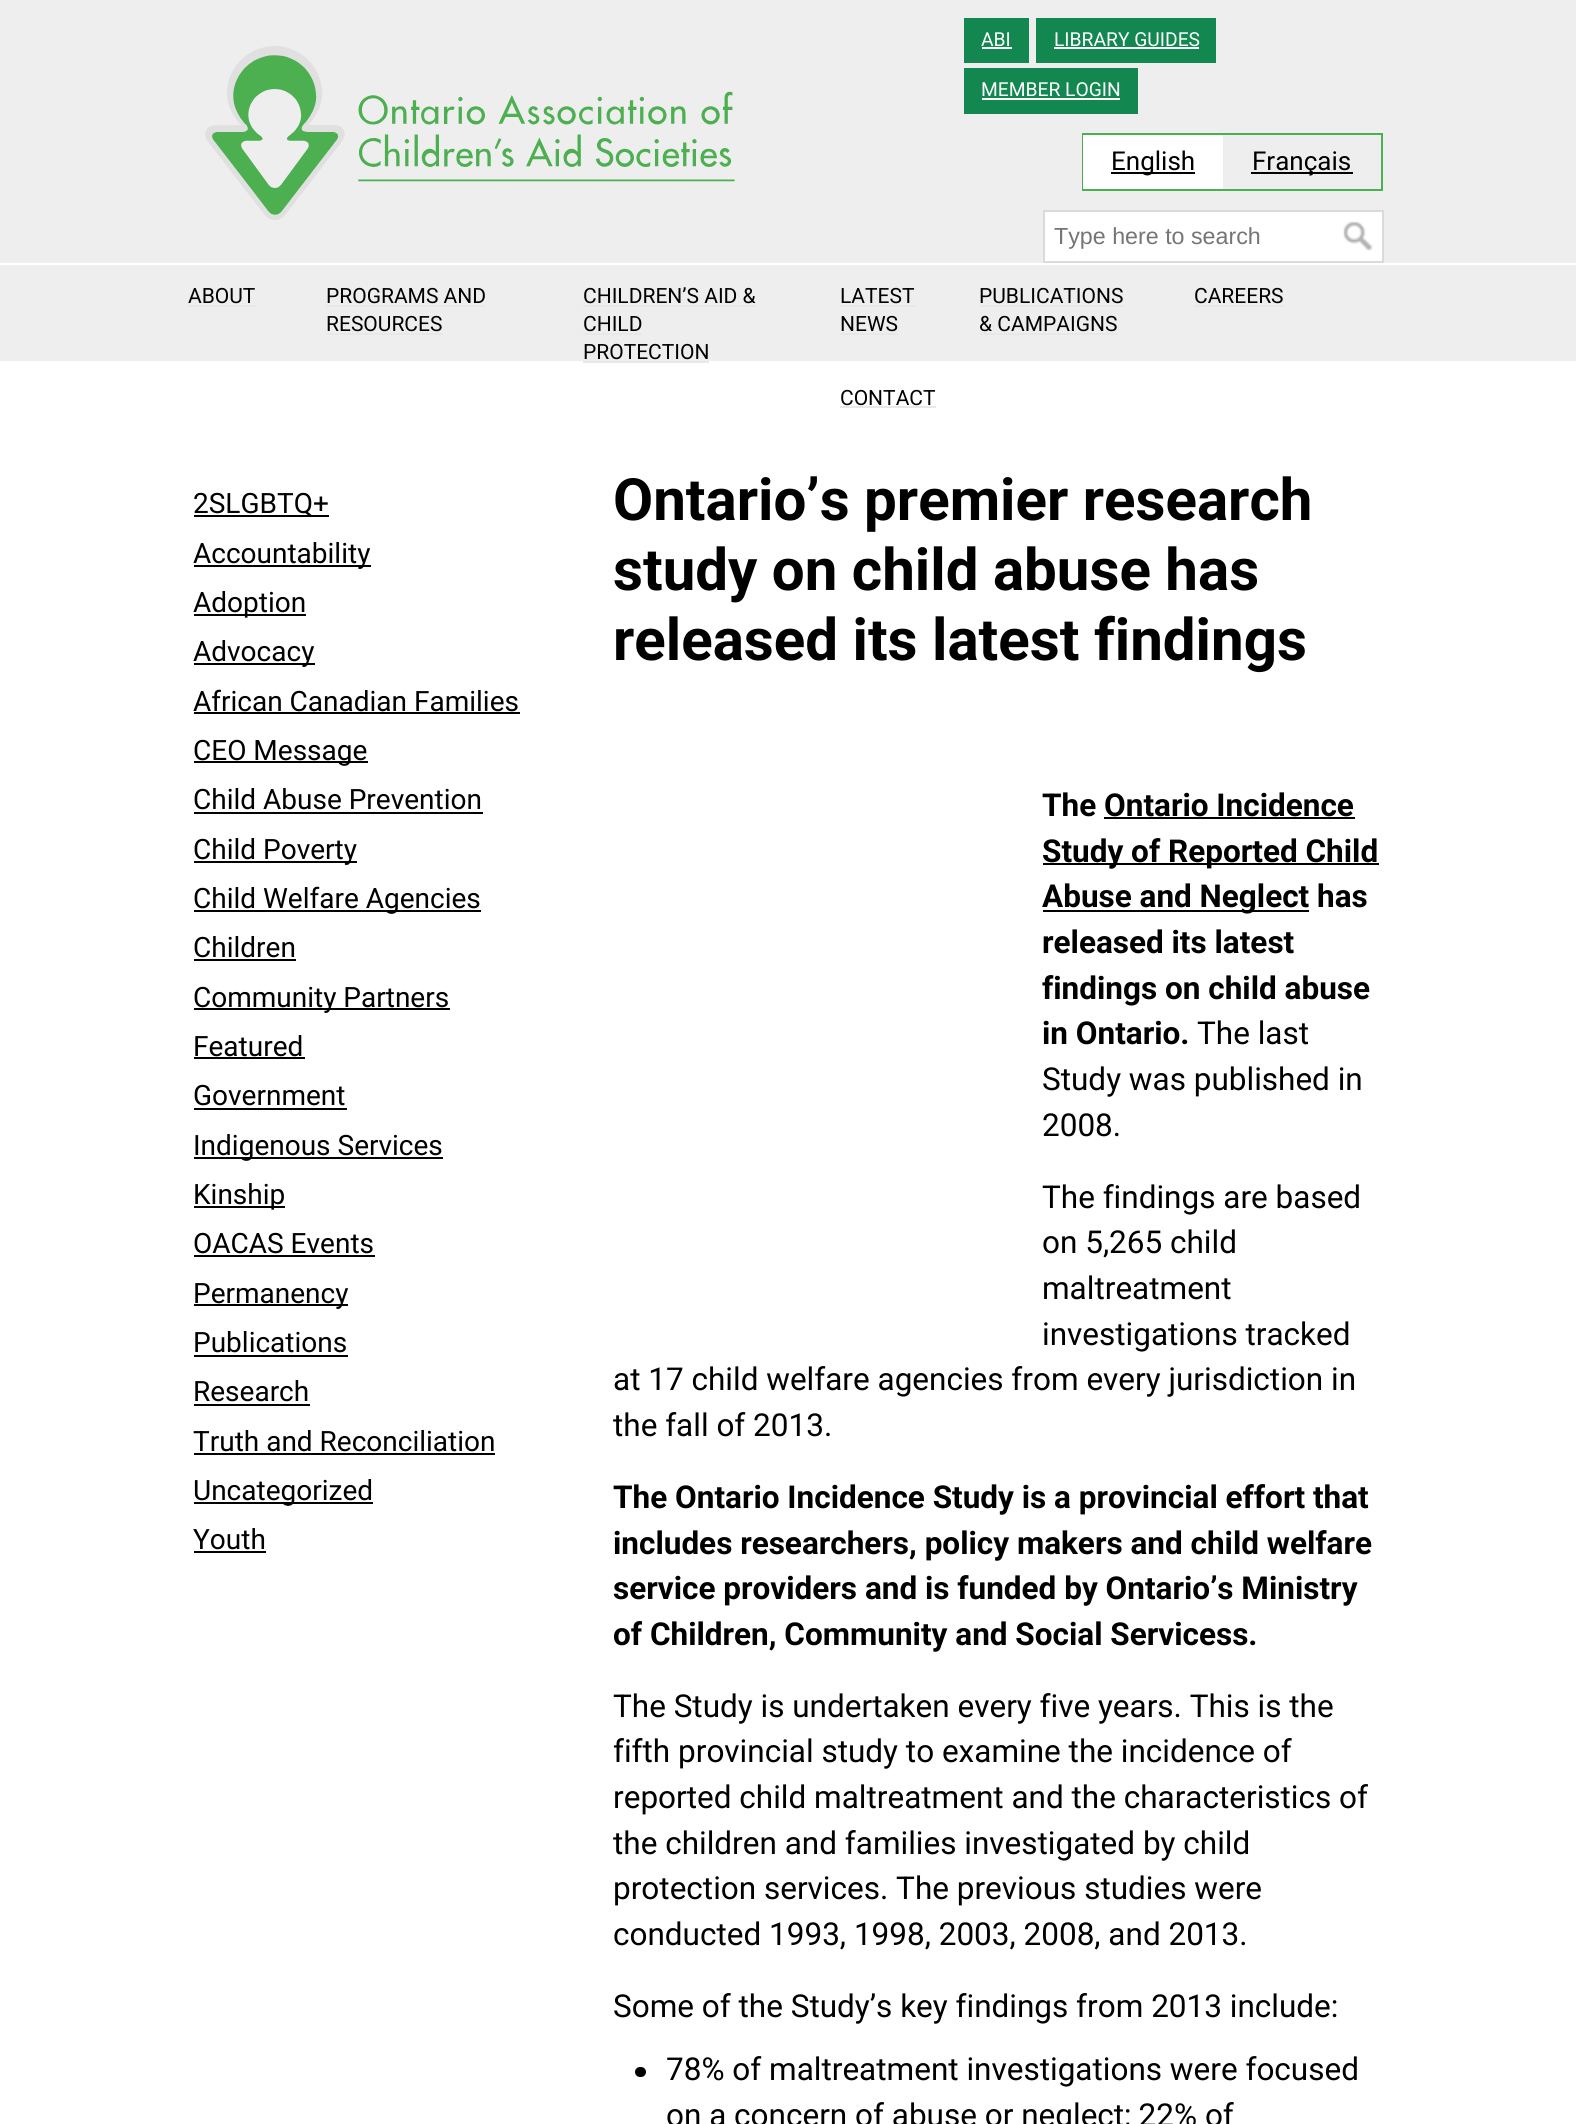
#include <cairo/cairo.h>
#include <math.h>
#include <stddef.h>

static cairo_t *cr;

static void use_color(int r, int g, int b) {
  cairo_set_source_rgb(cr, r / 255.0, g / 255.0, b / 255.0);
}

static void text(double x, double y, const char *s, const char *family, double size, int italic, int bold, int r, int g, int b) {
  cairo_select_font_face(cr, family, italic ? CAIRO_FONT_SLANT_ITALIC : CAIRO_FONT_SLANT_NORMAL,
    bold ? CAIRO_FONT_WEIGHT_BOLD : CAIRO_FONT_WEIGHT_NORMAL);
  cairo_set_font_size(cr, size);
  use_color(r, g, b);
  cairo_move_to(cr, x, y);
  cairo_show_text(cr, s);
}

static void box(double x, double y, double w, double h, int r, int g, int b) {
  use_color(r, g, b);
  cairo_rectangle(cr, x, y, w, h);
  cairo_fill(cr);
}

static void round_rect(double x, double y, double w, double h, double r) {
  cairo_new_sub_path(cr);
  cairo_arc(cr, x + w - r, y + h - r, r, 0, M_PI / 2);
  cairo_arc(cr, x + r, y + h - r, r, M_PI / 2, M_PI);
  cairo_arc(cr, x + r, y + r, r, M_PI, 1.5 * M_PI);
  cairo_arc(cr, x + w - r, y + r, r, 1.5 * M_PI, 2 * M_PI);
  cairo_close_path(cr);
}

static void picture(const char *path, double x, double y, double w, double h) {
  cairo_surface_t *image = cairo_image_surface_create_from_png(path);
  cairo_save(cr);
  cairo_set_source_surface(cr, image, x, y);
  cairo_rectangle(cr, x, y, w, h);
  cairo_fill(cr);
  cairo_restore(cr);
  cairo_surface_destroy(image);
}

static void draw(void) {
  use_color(255, 255, 255);
  cairo_paint(cr);
  box(0, 0, 1576, 361, 238, 238, 238);
  picture("img_01.png", 205, 46, 530, 174);
  box(964, 18, 65, 45, 18, 136, 80);
  box(982, 47, 30, 2, 255, 255, 255);
  box(1036, 18, 180, 45, 18, 136, 80);
  box(1054, 47, 145, 2, 255, 255, 255);
  box(964, 68, 174, 46, 18, 136, 80);
  box(982, 98, 138, 2, 255, 255, 255);
  cairo_rectangle(cr, 1083, 134, 299, 56);
  use_color(76, 175, 80);
  cairo_stroke(cr);
  box(1083, 135, 140, 54, 255, 255, 255);
  box(1111, 172, 84, 2, 0, 0, 0);
  box(1251, 172, 102, 2, 0, 0, 0);
  use_color(255, 255, 255);
  cairo_rectangle(cr, 1044, 211, 339, 51);
  cairo_fill_preserve(cr);
  use_color(221, 217, 217);
  cairo_stroke(cr);
  picture("img_02.png", 1343, 221, 30, 30);
  box(0, 263, 1576, 2, 255, 255, 255);
  box(189, 305, 67, 2, 232, 232, 232);
  box(326, 305, 159, 2, 232, 232, 232);
  box(326, 333, 117, 2, 232, 232, 232);
  box(583, 305, 173, 2, 232, 232, 232);
  box(583, 333, 59, 2, 232, 232, 232);
  box(583, 361, 126, 2, 232, 232, 232);
  box(840, 305, 75, 2, 232, 232, 232);
  box(840, 333, 58, 2, 232, 232, 232);
  box(980, 305, 144, 2, 232, 232, 232);
  box(980, 333, 138, 2, 232, 232, 232);
  box(1194, 305, 89, 2, 232, 232, 232);
  box(840, 406, 96, 2, 232, 232, 232);
  box(194, 515, 135, 2, 0, 0, 0);
  box(194, 565, 177, 2, 0, 0, 0);
  box(194, 614, 112, 2, 0, 0, 0);
  box(194, 663, 121, 2, 0, 0, 0);
  box(194, 712, 326, 2, 0, 0, 0);
  box(194, 761, 174, 2, 0, 0, 0);
  box(194, 812, 289, 2, 0, 0, 0);
  box(194, 861, 163, 2, 0, 0, 0);
  box(194, 910, 287, 2, 0, 0, 0);
  box(194, 959, 102, 2, 0, 0, 0);
  box(194, 1008, 256, 2, 0, 0, 0);
  box(194, 1057, 111, 2, 0, 0, 0);
  box(194, 1108, 153, 2, 0, 0, 0);
  box(194, 1157, 249, 2, 0, 0, 0);
  box(194, 1206, 91, 2, 0, 0, 0);
  box(194, 1255, 181, 2, 0, 0, 0);
  box(194, 1304, 154, 2, 0, 0, 0);
  box(194, 1355, 154, 2, 0, 0, 0);
  box(194, 1404, 116, 2, 0, 0, 0);
  box(194, 1453, 301, 2, 0, 0, 0);
  box(194, 1502, 179, 2, 0, 0, 0);
  box(194, 1551, 72, 2, 0, 0, 0);
  box(1104, 817, 251, 2, 0, 0, 0);
  box(1043, 863, 336, 2, 0, 0, 0);
  box(1043, 910, 266, 2, 0, 0, 0);
  round_rect(635, 2067, 11, 10, 5);
  cairo_fill(cr);
  text(981, 46, "ABI", "Roboto", 19.25, 0, 0, 255, 255, 255);
  text(1054, 46, "LIBRARY GUIDES", "Roboto", 19.25, 0, 0, 255, 255, 255);
  text(981, 96, "MEMBER LOGIN", "Roboto", 19.25, 0, 0, 255, 255, 255);
  text(1111, 170, "English", "Roboto", 26, 0, 0, 0, 0, 0);
  text(1252, 170, "Français", "Roboto", 26, 0, 0, 0, 0, 0);
  text(1054, 244, "Type here to search", "Liberation Sans", 23.25, 0, 0, 117, 117, 117);
  text(188, 303, "ABOUT", "Roboto", 21, 0, 0, 0, 0, 0);
  text(326, 303, "PROGRAMS AND", "Roboto", 21, 0, 0, 0, 0, 0);
  text(326, 331, "RESOURCES", "Roboto", 21, 0, 0, 0, 0, 0);
  text(583, 303, "CHILDREN’S AID &", "Roboto", 21, 0, 0, 0, 0, 0);
  text(583, 331, "CHILD", "Roboto", 21, 0, 0, 0, 0, 0);
  text(583, 359, "PROTECTION", "Roboto", 21, 0, 0, 0, 0, 0);
  text(840, 303, "LATEST", "Roboto", 21, 0, 0, 0, 0, 0);
  text(840, 331, "NEWS", "Roboto", 21, 0, 0, 0, 0, 0);
  text(979, 303, "PUBLICATIONS", "Roboto", 21, 0, 0, 0, 0, 0);
  text(979, 331, "& CAMPAIGNS", "Roboto", 21, 0, 0, 0, 0, 0);
  text(1194, 303, "CAREERS", "Roboto", 21, 0, 0, 0, 0, 0);
  text(840, 405, "CONTACT", "Roboto", 21, 0, 0, 0, 0, 0);
  text(193, 513, "2SLGBTQ+", "Roboto", 28, 0, 0, 0, 0, 0);
  text(193, 563, "Accountability", "Roboto", 28, 0, 0, 0, 0, 0);
  text(193, 612, "Adoption", "Roboto", 28, 0, 0, 0, 0, 0);
  text(193, 661, "Advocacy", "Roboto", 28, 0, 0, 0, 0, 0);
  text(193, 711, "African Canadian Families", "Roboto", 28, 0, 0, 0, 0, 0);
  text(193, 760, "CEO Message", "Roboto", 28, 0, 0, 0, 0, 0);
  text(193, 809, "Child Abuse Prevention", "Roboto", 28, 0, 0, 0, 0, 0);
  text(193, 859, "Child Poverty", "Roboto", 28, 0, 0, 0, 0, 0);
  text(193, 908, "Child Welfare Agencies", "Roboto", 28, 0, 0, 0, 0, 0);
  text(193, 957, "Children", "Roboto", 28, 0, 0, 0, 0, 0);
  text(193, 1007, "Community Partners", "Roboto", 28, 0, 0, 0, 0, 0);
  text(193, 1056, "Featured", "Roboto", 28, 0, 0, 0, 0, 0);
  text(193, 1105, "Government", "Roboto", 28, 0, 0, 0, 0, 0);
  text(193, 1155, "Indigenous Services", "Roboto", 28, 0, 0, 0, 0, 0);
  text(193, 1204, "Kinship", "Roboto", 28, 0, 0, 0, 0, 0);
  text(193, 1253, "OACAS Events", "Roboto", 28, 0, 0, 0, 0, 0);
  text(193, 1303, "Permanency", "Roboto", 28, 0, 0, 0, 0, 0);
  text(193, 1352, "Publications", "Roboto", 28, 0, 0, 0, 0, 0);
  text(193, 1401, "Research", "Roboto", 28, 0, 0, 0, 0, 0);
  text(193, 1451, "Truth and Reconciliation", "Roboto", 28, 0, 0, 0, 0, 0);
  text(193, 1500, "Uncategorized", "Roboto", 28, 0, 0, 0, 0, 0);
  text(193, 1549, "Youth", "Roboto", 28, 0, 0, 0, 0, 0);
  text(613, 520, "Ontario’s premier research", "Roboto", 58.25, 0, 1, 0, 0, 0);
  text(613, 590, "study on child abuse has", "Roboto", 58.25, 0, 1, 0, 0, 0);
  text(613, 660, "released its latest findings", "Roboto", 58.25, 0, 1, 0, 0, 0);
  text(1042, 816, "The Ontario Incidence", "Roboto", 31.5, 0, 1, 0, 0, 0);
  text(1042, 862, "Study of Reported Child", "Roboto", 31.5, 0, 1, 0, 0, 0);
  text(1042, 907, "Abuse and Neglect has", "Roboto", 31.5, 0, 1, 0, 0, 0);
  text(1042, 953, "released its latest", "Roboto", 31.5, 0, 1, 0, 0, 0);
  text(1042, 999, "findings on child abuse", "Roboto", 31.5, 0, 1, 0, 0, 0);
  text(1042, 1044, "in Ontario.", "Roboto", 31.5, 0, 1, 0, 0, 0);
  text(1197, 1044, "The last", "Roboto", 31.5, 0, 0, 0, 0, 0);
  text(1042, 1090, "Study was published in", "Roboto", 31.5, 0, 0, 0, 0, 0);
  text(1042, 1136, "2008.", "Roboto", 31.5, 0, 0, 0, 0, 0);
  text(1042, 1208, "The findings are based", "Roboto", 31.5, 0, 0, 0, 0, 0);
  text(1042, 1253, "on 5,265 child", "Roboto", 31.5, 0, 0, 0, 0, 0);
  text(1042, 1299, "maltreatment", "Roboto", 31.5, 0, 0, 0, 0, 0);
  text(1042, 1345, "investigations tracked", "Roboto", 31.5, 0, 0, 0, 0, 0);
  text(613, 1390, "at 17 child welfare agencies from every jurisdiction in", "Roboto", 31.5, 0, 0, 0, 0, 0);
  text(613, 1436, "the fall of 2013.", "Roboto", 31.5, 0, 0, 0, 0, 0);
  text(613, 1508, "The Ontario Incidence Study is a provincial effort that", "Roboto", 31.5, 0, 1, 0, 0, 0);
  text(613, 1554, "includes researchers, policy makers and child welfare", "Roboto", 31.5, 0, 1, 0, 0, 0);
  text(613, 1599, "service providers and is funded by Ontario’s Ministry", "Roboto", 31.5, 0, 1, 0, 0, 0);
  text(613, 1645, "of Children, Community and Social Servicess.", "Roboto", 31.5, 0, 1, 0, 0, 0);
  text(613, 1717, "The Study is undertaken every five years. This is the", "Roboto", 31.5, 0, 0, 0, 0, 0);
  text(613, 1762, "fifth provincial study to examine the incidence of", "Roboto", 31.5, 0, 0, 0, 0, 0);
  text(613, 1808, "reported child maltreatment and the characteristics of", "Roboto", 31.5, 0, 0, 0, 0, 0);
  text(613, 1854, "the children and families investigated by child", "Roboto", 31.5, 0, 0, 0, 0, 0);
  text(613, 1899, "protection services. The previous studies were", "Roboto", 31.5, 0, 0, 0, 0, 0);
  text(613, 1945, "conducted 1993, 1998, 2003, 2008, and 2013.", "Roboto", 31.5, 0, 0, 0, 0, 0);
  text(613, 2017, "Some of the Study’s key findings from 2013 include:", "Roboto", 31.5, 0, 0, 0, 0, 0);
  text(666, 2080, "78% of maltreatment investigations were focused", "Roboto", 31.5, 0, 0, 0, 0, 0);
  text(666, 2126, "on a concern of abuse or neglect; 22% of", "Roboto", 31.5, 0, 0, 0, 0, 0);
}

int main(void) {
  cairo_surface_t *surface = cairo_image_surface_create(CAIRO_FORMAT_RGB24, 1576, 2124);
  cr = cairo_create(surface);
  cairo_font_options_t *options = cairo_font_options_create();
  cairo_font_options_set_hint_metrics(options, CAIRO_HINT_METRICS_OFF);
  cairo_font_options_set_hint_style(options, CAIRO_HINT_STYLE_NONE);
  cairo_set_font_options(cr, options);
  cairo_set_miter_limit(cr, 4);
  draw();
  cairo_surface_write_to_png(surface, "out.png");
  cairo_font_options_destroy(options);
  cairo_destroy(cr);
  cairo_surface_destroy(surface);
  return 0;
}
